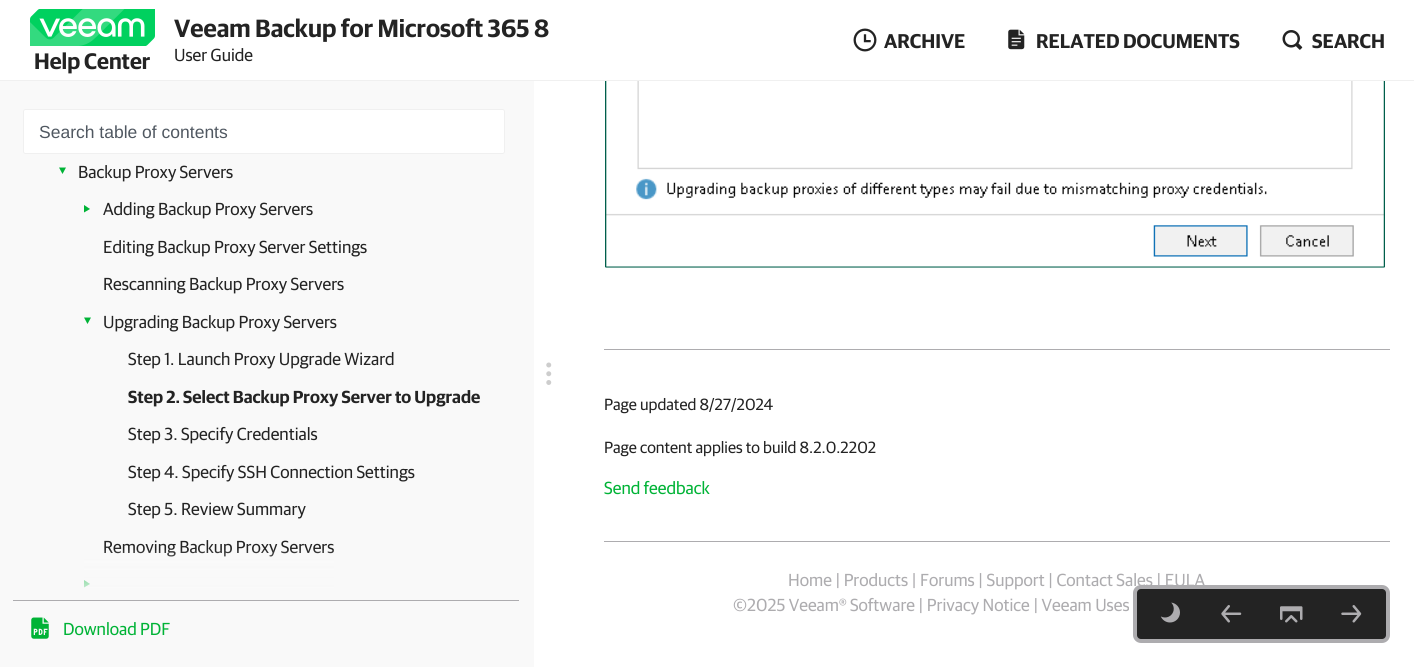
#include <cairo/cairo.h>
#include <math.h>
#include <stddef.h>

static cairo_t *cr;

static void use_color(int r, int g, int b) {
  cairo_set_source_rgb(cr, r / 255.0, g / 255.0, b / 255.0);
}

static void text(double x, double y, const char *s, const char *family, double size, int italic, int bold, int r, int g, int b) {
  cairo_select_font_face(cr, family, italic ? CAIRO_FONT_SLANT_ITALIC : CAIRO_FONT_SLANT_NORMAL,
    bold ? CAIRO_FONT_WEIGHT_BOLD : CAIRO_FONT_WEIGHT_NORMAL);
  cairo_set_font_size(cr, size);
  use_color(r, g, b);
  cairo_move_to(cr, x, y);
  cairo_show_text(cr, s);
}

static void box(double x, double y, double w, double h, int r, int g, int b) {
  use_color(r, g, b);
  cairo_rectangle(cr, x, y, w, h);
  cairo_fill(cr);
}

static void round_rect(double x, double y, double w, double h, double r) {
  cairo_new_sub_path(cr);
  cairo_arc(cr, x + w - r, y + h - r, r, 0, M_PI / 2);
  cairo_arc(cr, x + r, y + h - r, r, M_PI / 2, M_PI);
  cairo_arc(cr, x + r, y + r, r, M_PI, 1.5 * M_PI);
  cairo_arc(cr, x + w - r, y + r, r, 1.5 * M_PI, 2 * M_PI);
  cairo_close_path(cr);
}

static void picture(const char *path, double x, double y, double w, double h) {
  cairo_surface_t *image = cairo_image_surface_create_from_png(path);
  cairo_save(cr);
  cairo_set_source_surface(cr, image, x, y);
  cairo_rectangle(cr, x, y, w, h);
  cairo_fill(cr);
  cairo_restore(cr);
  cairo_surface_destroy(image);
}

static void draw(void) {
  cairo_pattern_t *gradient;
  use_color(255, 255, 255);
  cairo_paint(cr);
  box(0, 80, 1414, 1, 240, 240, 240);
  picture("img_01.png", 30, 9, 125, 37);
  picture("img_02.png", 853, 28, 24, 24);
  picture("img_03.png", 1008, 29, 17, 21);
  picture("img_04.png", 1282, 30, 21, 20);
  box(0, 81, 534, 586, 249, 249, 249);
  use_color(255, 255, 255);
  round_rect(23.5, 109.5, 481, 44, 2);
  cairo_fill_preserve(cr);
  use_color(240, 240, 240);
  cairo_set_line_width(cr, 1);
  cairo_stroke(cr);
  use_color(0, 179, 54);
  cairo_new_path(cr);
  cairo_move_to(cr, 59, 167.5);
  cairo_line_to(cr, 66, 167.5);
  cairo_line_to(cr, 62.5, 174);
  cairo_close_path(cr);
  cairo_fill(cr);
  cairo_new_path(cr);
  cairo_move_to(cr, 84, 212.5);
  cairo_line_to(cr, 84, 205);
  cairo_line_to(cr, 90, 209);
  cairo_close_path(cr);
  cairo_fill(cr);
  cairo_new_path(cr);
  cairo_move_to(cr, 84, 317.5);
  cairo_line_to(cr, 91, 317.5);
  cairo_line_to(cr, 87.5, 324);
  cairo_close_path(cr);
  cairo_fill(cr);
  cairo_new_path(cr);
  cairo_move_to(cr, 84, 587.5);
  cairo_line_to(cr, 84, 580);
  cairo_line_to(cr, 90, 584);
  cairo_close_path(cr);
  cairo_fill(cr);
  box(13, 600, 506, 1, 173, 172, 175);
  picture("img_05.png", 31, 617, 18, 22);
  picture("img_06.png", 546, 362, 6, 23);
  picture("img_07.png", 605, 81, 780, 187);
  box(604, 349, 786, 1, 173, 172, 175);
  box(604, 541, 786, 1, 173, 172, 175);
  text(34, 69, "Help Center", "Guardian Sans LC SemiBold", 22.5, 0, 0, 35, 35, 35);
  text(174, 37, "Veeam Backup for Microsoft 365 8", "Guardian Sans LC SemiBold", 25, 0, 0, 35, 35, 35);
  text(174, 61, "User Guide", "Guardian Sans LC", 17.5, 0, 0, 35, 35, 35);
  text(884, 48, "ARCHIVE", "Guardian Sans LC SemiBold", 20, 0, 0, 35, 35, 35);
  text(1036, 48, "RELATED DOCUMENTS", "Guardian Sans LC SemiBold", 20, 0, 0, 35, 35, 35);
  text(1312, 48, "SEARCH", "Guardian Sans LC SemiBold", 20, 0, 0, 35, 35, 35);
  text(39, 138, "Search table of contents", "Liberation Sans", 17.5, 0, 0, 80, 88, 97);
  text(78, 178, "Backup Proxy Servers", "Guardian Sans LC", 17.5, 0, 0, 35, 35, 35);
  text(103, 215, "Adding Backup Proxy Servers", "Guardian Sans LC", 17.5, 0, 0, 35, 35, 35);
  text(103, 253, "Editing Backup Proxy Server Settings", "Guardian Sans LC", 17.5, 0, 0, 35, 35, 35);
  text(103, 290, "Rescanning Backup Proxy Servers", "Guardian Sans LC", 17.5, 0, 0, 35, 35, 35);
  text(103, 328, "Upgrading Backup Proxy Servers", "Guardian Sans LC", 17.5, 0, 0, 35, 35, 35);
  text(128, 365, "Step 1. Launch Proxy Upgrade Wizard", "Guardian Sans LC", 17.5, 0, 0, 35, 35, 35);
  text(128, 403, "Step 2. Select Backup Proxy Server to Upgrade", "Guardian Sans LC SemiBold", 17.5, 0, 0, 35, 35, 35);
  text(128, 440, "Step 3. Specify Credentials", "Guardian Sans LC", 17.5, 0, 0, 35, 35, 35);
  text(128, 478, "Step 4. Specify SSH Connection Settings", "Guardian Sans LC", 17.5, 0, 0, 35, 35, 35);
  text(128, 515, "Step 5. Review Summary", "Guardian Sans LC", 17.5, 0, 0, 35, 35, 35);
  text(103, 553, "Removing Backup Proxy Servers", "Guardian Sans LC", 17.5, 0, 0, 35, 35, 35);
  gradient = cairo_pattern_create_linear(259, 550, 259, 600);
  cairo_pattern_add_color_stop_rgba(gradient, 0, 0.976, 0.976, 0.976, 0.05);
  cairo_pattern_add_color_stop_rgba(gradient, 1, 0.976, 0.976, 0.976, 1);
  cairo_set_source(cr, gradient);
  cairo_pattern_destroy(gradient);
  cairo_rectangle(cr, 84, 550, 250, 38);
  cairo_fill(cr);
  text(63, 635, "Download PDF", "Guardian Sans LC", 17.5, 0, 0, 0, 179, 54);
  text(604, 410, "Page updated 8/27/2024", "Guardian Sans LC", 16.25, 0, 0, 35, 35, 35);
  text(604, 453, "Page content applies to build 8.2.0.2202", "Guardian Sans LC", 16.25, 0, 0, 35, 35, 35);
  text(604, 494, "Send feedback", "Guardian Sans LC", 17.5, 0, 0, 0, 179, 54);
  text(788, 586, "Home | Products | Forums | Support | Contact Sales | EULA", "Guardian Sans LC", 17.5, 0, 0, 173, 172, 175);
  text(733, 611, "©2025 Veeam® Software | Privacy Notice | Veeam Uses", "Guardian Sans LC", 17.5, 0, 0, 173, 172, 175);
  use_color(35, 35, 35);
  round_rect(1135, 587, 253, 54, 6);
  cairo_fill_preserve(cr);
  use_color(173, 172, 175);
  cairo_set_line_width(cr, 4);
  cairo_stroke(cr);
  picture("img_08.png", 1160, 602, 20, 21);
  picture("img_09.png", 1221, 605, 21, 18);
  picture("img_10.png", 1280, 606, 23, 17);
  picture("img_11.png", 1341, 605, 21, 18);
}

int main(void) {
  cairo_surface_t *surface = cairo_image_surface_create(CAIRO_FORMAT_RGB24, 1414, 667);
  cr = cairo_create(surface);
  cairo_font_options_t *options = cairo_font_options_create();
  cairo_font_options_set_hint_metrics(options, CAIRO_HINT_METRICS_OFF);
  cairo_font_options_set_hint_style(options, CAIRO_HINT_STYLE_NONE);
  cairo_set_font_options(cr, options);
  cairo_set_miter_limit(cr, 4);
  draw();
  cairo_surface_write_to_png(surface, "out.png");
  cairo_font_options_destroy(options);
  cairo_destroy(cr);
  cairo_surface_destroy(surface);
  return 0;
}
